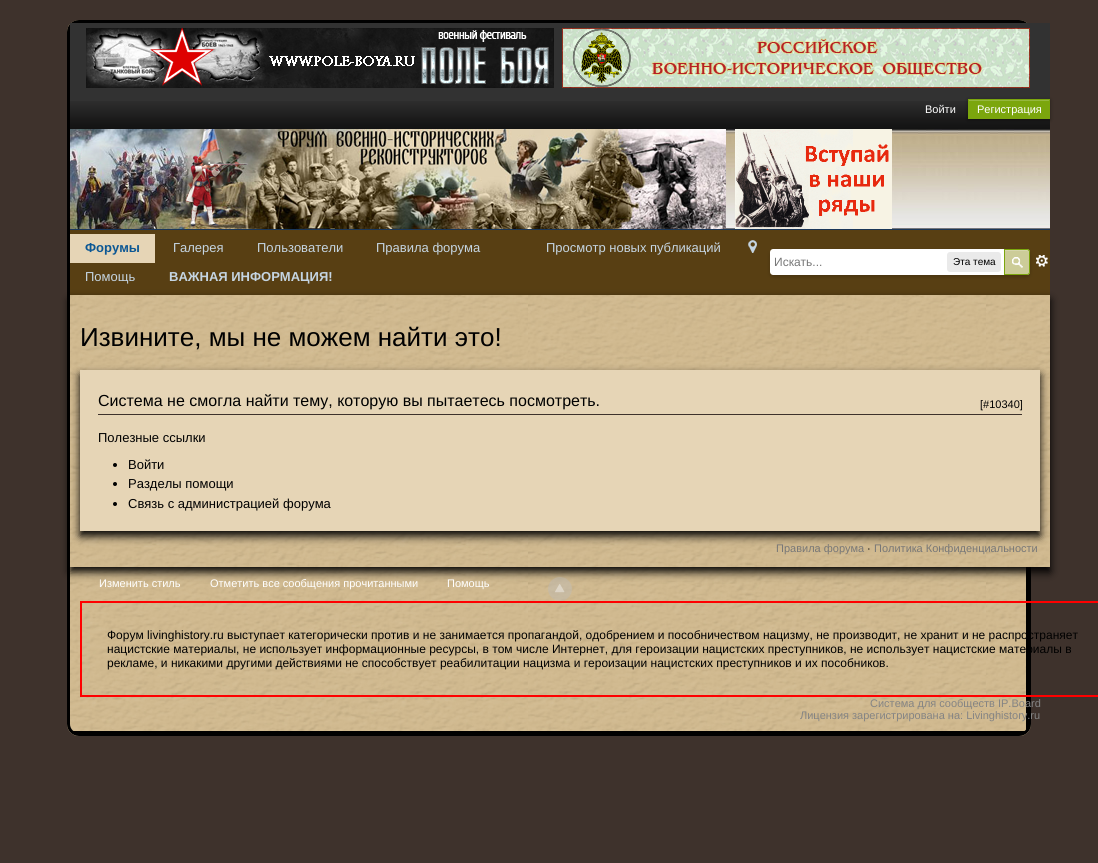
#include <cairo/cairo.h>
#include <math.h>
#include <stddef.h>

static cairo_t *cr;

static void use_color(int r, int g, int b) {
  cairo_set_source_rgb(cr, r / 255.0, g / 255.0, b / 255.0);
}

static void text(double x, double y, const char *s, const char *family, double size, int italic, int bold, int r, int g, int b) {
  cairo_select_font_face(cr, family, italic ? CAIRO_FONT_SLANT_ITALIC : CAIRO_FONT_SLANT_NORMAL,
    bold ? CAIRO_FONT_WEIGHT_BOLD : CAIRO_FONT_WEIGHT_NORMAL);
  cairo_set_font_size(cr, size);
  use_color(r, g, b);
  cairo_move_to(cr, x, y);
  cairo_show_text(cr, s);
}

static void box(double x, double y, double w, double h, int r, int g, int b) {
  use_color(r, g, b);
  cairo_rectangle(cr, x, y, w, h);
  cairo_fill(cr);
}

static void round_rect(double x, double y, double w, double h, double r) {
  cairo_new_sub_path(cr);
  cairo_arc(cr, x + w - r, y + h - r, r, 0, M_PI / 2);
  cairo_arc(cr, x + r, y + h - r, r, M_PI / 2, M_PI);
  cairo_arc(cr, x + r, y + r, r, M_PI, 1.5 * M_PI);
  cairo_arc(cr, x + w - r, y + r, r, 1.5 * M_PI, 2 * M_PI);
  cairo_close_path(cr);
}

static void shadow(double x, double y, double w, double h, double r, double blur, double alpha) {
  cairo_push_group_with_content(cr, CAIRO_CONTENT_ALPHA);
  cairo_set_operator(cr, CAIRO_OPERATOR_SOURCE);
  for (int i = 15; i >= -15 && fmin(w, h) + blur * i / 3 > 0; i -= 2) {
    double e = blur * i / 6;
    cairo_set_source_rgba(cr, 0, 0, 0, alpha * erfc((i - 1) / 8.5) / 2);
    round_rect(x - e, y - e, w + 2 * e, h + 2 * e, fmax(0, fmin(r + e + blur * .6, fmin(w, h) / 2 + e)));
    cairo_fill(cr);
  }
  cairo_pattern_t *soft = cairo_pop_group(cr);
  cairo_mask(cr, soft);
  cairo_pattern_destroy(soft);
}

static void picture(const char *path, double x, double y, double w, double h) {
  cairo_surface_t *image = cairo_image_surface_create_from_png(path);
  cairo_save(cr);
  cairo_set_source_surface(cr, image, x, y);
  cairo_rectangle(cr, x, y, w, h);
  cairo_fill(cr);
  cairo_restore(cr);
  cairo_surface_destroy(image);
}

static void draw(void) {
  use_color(62, 50, 44);
  cairo_paint(cr);
  picture("img_01.png", 67, 20, 964, 716);
  round_rect(68.5, 21.5, 961, 713, 10.5);
  use_color(0, 0, 0);
  cairo_set_line_width(cr, 3);
  cairo_stroke(cr);
  box(1026, 567, 2, 163, 0, 0, 0);
  box(73, 731, 952, 2, 0, 0, 0);
  box(70, 23, 980, 78, 50, 50, 50);
  picture("img_02.png", 70, 101, 980, 28);
  picture("img_03.png", 86, 28, 468, 60);
  picture("img_04.png", 562, 28, 468, 60);
  use_color(0, 0, 0);
  shadow(968, 100, 82, 20, 0, 2, 0.4);
  box(968, 99, 82, 20, 123, 166, 13);
  box(969, 100, 80, 1, 149, 184, 61);
  box(70, 230, 980, 65, 88, 63, 19);
  box(70, 234, 85, 29, 230, 213, 182);
  picture("img_05.png", 748, 240, 9, 13);
  picture("img_06.png", 726, 129, 324, 100);
  box(70, 229, 980, 1, 27, 55, 89);
  picture("img_07.png", 70, 129, 656, 100);
  picture("img_08.png", 735, 129, 157, 100);
  picture("img_10.png", 1036, 255, 12, 12);
  use_color(0, 0, 0);
  shadow(770, 251, 260, 26, 4, 2, 0.2);
  use_color(255, 255, 255);
  cairo_new_path(cr);
  cairo_move_to(cr, 773, 249);
  cairo_line_to(cr, 1026, 249);
  cairo_curve_to(cr, 1028, 249, 1030, 251, 1030, 253);
  cairo_line_to(cr, 1030, 271);
  cairo_curve_to(cr, 1030, 273, 1028, 275, 1026, 275);
  cairo_line_to(cr, 773, 275);
  cairo_curve_to(cr, 771.5, 275, 770, 273.5, 770, 272);
  cairo_line_to(cr, 770, 252);
  cairo_curve_to(cr, 770, 250.5, 771.5, 249, 773, 249);
  cairo_close_path(cr);
  cairo_fill(cr);
  use_color(234, 234, 234);
  round_rect(947, 252, 54, 20, 3);
  cairo_fill(cr);
  use_color(204, 204, 152);
  cairo_new_path(cr);
  cairo_move_to(cr, 1004, 249);
  cairo_line_to(cr, 1027, 249);
  cairo_curve_to(cr, 1028.5, 249, 1030, 250.5, 1030, 252);
  cairo_line_to(cr, 1030, 272);
  cairo_curve_to(cr, 1030, 273.5, 1028.5, 275, 1027, 275);
  cairo_line_to(cr, 1004, 275);
  cairo_close_path(cr);
  cairo_fill(cr);
  picture("img_09.png", 1012, 257, 11, 11);
  use_color(214, 214, 173);
  cairo_new_path(cr);
  cairo_move_to(cr, 1005, 251);
  cairo_line_to(cr, 1027, 251);
  cairo_curve_to(cr, 1028, 251, 1029, 252, 1029, 253);
  cairo_line_to(cr, 1029, 252);
  cairo_curve_to(cr, 1029, 251, 1028, 250, 1027, 250);
  cairo_line_to(cr, 1005, 250);
  cairo_close_path(cr);
  cairo_fill(cr);
  cairo_new_path(cr);
  cairo_move_to(cr, 1004.5, 249.5);
  cairo_line_to(cr, 1027, 249.5);
  cairo_curve_to(cr, 1028.5, 249.5, 1029.5, 250.5, 1029.5, 252);
  cairo_line_to(cr, 1029.5, 272);
  cairo_curve_to(cr, 1029.5, 273.5, 1028.5, 274.5, 1027, 274.5);
  cairo_line_to(cr, 1004.5, 274.5);
  cairo_close_path(cr);
  use_color(123, 166, 13);
  cairo_set_line_width(cr, 1);
  cairo_stroke(cr);
  use_color(0, 0, 0);
  shadow(70, 300, 980, 272, 0, 4.5, 1);
  picture("img_11.png", 70, 295, 980, 272);
  shadow(80, 375, 960, 161, 0, 4.5, 1);
  box(80, 370, 960, 161, 230, 213, 182);
  box(98, 414, 924, 1, 62, 50, 44);
  use_color(0, 0, 0);
  cairo_arc(cr, 115, 465, 2, 0, 2 * M_PI);
  cairo_fill(cr);
  cairo_arc(cr, 115, 484, 2, 0, 2 * M_PI);
  cairo_fill(cr);
  cairo_arc(cr, 115, 504, 2, 0, 2 * M_PI);
  cairo_fill(cr);
  cairo_set_source_rgba(cr, 0.741, 0.741, 0.741, 0.4);
  cairo_arc(cr, 560, 589, 12, 0, 2 * M_PI);
  cairo_fill(cr);
  picture("img_12.png", 555, 584, 10, 9);
  cairo_rectangle(cr, 81, 602, 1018, 94);
  use_color(255, 0, 0);
  cairo_set_line_width(cr, 2);
  cairo_stroke(cr);
  text(925, 113, "Войти", "Liberation Sans", 11, 0, 0, 255, 255, 255);
  text(977, 113, "Регистрация", "Liberation Sans", 11, 0, 0, 255, 255, 255);
  text(85, 252, "Форумы", "Liberation Sans", 13, 0, 1, 11, 87, 148);
  text(173, 252, "Галерея", "Liberation Sans", 13, 0, 0, 197, 213, 226);
  text(257, 252, "Пользователи", "Liberation Sans", 13, 0, 0, 197, 213, 226);
  text(376, 252, "Правила форума", "Liberation Sans", 13, 0, 0, 197, 213, 226);
  text(546, 252, "Просмотр новых публикаций", "Liberation Sans", 13, 0, 0, 197, 213, 226);
  text(85, 281, "Помощь", "Liberation Sans", 13, 0, 0, 197, 213, 226);
  text(169, 281, "ВАЖНАЯ ИНФОРМАЦИЯ!", "Liberation Sans", 13, 0, 1, 197, 213, 226);
  text(774, 266, "Искать...", "Liberation Sans", 12, 0, 0, 119, 119, 119);
  text(953, 265, "Эта тема", "Liberation Sans", 10, 0, 0, 0, 0, 0);
  text(80, 346, "Извините, мы не можем найти это!", "Liberation Sans", 26, 0, 0, 0, 0, 0);
  text(98, 406, "Система не смогла найти тему, которую вы пытаетесь посмотреть.", "Liberation Sans", 16, 0, 0, 0, 0, 0);
  text(980, 408, "[#10340]", "Liberation Sans", 11, 0, 0, 0, 0, 0);
  text(98, 442, "Полезные ссылки", "Liberation Sans", 13, 0, 0, 0, 0, 0);
  text(128, 469, "Войти", "Liberation Sans", 13, 0, 0, 0, 0, 0);
  text(128, 488, "Разделы помощи", "Liberation Sans", 13, 0, 0, 0, 0, 0);
  text(128, 508, "Связь с администрацией форума", "Liberation Sans", 13, 0, 0, 0, 0, 0);
  text(776, 552, "Правила форума", "Liberation Sans", 11, 0, 0, 119, 119, 119);
  text(867, 552, "·", "Liberation Sans", 11, 0, 0, 0, 0, 0);
  text(874, 552, "Политика Конфиденциальности", "Liberation Sans", 11, 0, 0, 119, 119, 119);
  text(99, 587, "Изменить стиль", "Liberation Sans", 11, 0, 0, 255, 255, 255);
  text(210, 587, "Отметить все сообщения прочитанными", "Liberation Sans", 11, 0, 0, 255, 255, 255);
  text(447, 587, "Помощь", "Liberation Sans", 11, 0, 0, 255, 255, 255);
  text(107, 639, "Форум livinghistory.ru выступает категорически против и не занимается пропагандой, одобрением и пособничеством нацизму, не производит, не хранит и не распространяет", "Liberation Sans", 12, 0, 0, 0, 0, 0);
  text(107, 653, "нацистские материалы, не использует информационные ресурсы, в том числе Интернет, для героизации нацистских преступников, не использует нацистские материалы в", "Liberation Sans", 12, 0, 0, 0, 0, 0);
  text(107, 667, "рекламе, и никакими другими действиями не способствует реабилитации нацизма и героизации нацистских преступников и их пособников.", "Liberation Sans", 12, 0, 0, 0, 0, 0);
  text(870, 707, "Система для сообществ IP.Board", "Liberation Sans", 11, 0, 0, 132, 132, 132);
  text(800, 719, "Лицензия зарегистрирована на: Livinghistory.ru", "Liberation Sans", 11, 0, 0, 132, 132, 132);
}

int main(void) {
  cairo_surface_t *surface = cairo_image_surface_create(CAIRO_FORMAT_RGB24, 1098, 863);
  cr = cairo_create(surface);
  cairo_font_options_t *options = cairo_font_options_create();
  cairo_font_options_set_hint_metrics(options, CAIRO_HINT_METRICS_OFF);
  cairo_font_options_set_hint_style(options, CAIRO_HINT_STYLE_NONE);
  cairo_set_font_options(cr, options);
  cairo_set_miter_limit(cr, 4);
  draw();
  cairo_surface_write_to_png(surface, "out.png");
  cairo_font_options_destroy(options);
  cairo_destroy(cr);
  cairo_surface_destroy(surface);
  return 0;
}
